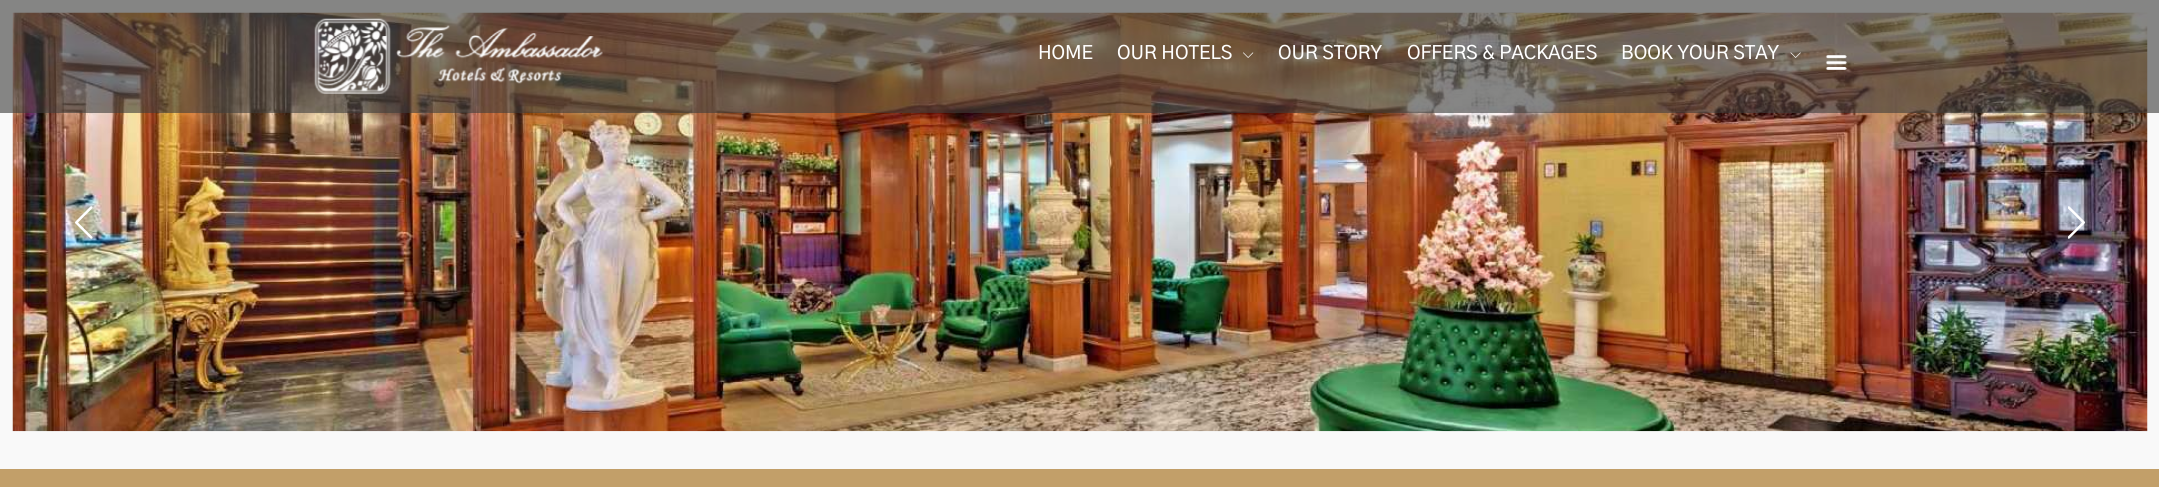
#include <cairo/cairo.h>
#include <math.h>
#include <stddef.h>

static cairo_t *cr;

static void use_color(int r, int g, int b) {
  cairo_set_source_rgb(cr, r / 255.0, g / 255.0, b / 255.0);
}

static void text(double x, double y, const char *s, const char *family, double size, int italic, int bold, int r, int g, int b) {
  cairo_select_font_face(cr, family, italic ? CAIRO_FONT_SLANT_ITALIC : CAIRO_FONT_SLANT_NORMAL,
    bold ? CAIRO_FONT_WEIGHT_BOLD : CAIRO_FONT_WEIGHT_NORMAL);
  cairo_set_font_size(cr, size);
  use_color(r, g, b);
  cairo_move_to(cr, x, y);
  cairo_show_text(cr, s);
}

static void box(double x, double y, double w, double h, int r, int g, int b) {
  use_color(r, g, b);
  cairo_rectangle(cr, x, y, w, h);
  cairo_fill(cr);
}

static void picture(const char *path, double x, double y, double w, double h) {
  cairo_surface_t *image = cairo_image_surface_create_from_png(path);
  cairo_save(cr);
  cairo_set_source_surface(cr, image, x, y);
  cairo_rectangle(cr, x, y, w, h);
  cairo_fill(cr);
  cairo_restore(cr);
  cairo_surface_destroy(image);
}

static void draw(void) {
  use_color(249, 249, 249);
  cairo_paint(cr);
  picture("img_01.png", 12, 12, 2136, 420);
  picture("img_02.png", 75, 206, 18, 33);
  picture("img_03.png", 2068, 206, 17, 33);
  box(0, 469, 2159, 18, 194, 159, 105);
  cairo_set_source_rgba(cr, 0.243, 0.243, 0.235, 0.62);
  cairo_rectangle(cr, 0, 0, 2159, 113);
  cairo_fill(cr);
  picture("img_04.png", 314, 18, 289, 76);
  picture("img_05.png", 1243, 52, 11, 6);
  picture("img_06.png", 1790, 52, 11, 6);
  picture("img_07.png", 1825, 55, 22, 15);
  text(1038, 59, "HOME", "Gothic A1 Medium", 18.75, 0, 0, 255, 255, 255);
  text(1117, 59, "OUR HOTELS", "Gothic A1 Medium", 18.75, 0, 0, 255, 255, 255);
  text(1278, 59, "OUR STORY", "Gothic A1 Medium", 18.75, 0, 0, 255, 255, 255);
  text(1407, 59, "OFFERS & PACKAGES", "Gothic A1 Medium", 18.75, 0, 0, 255, 255, 255);
  text(1621, 59, "BOOK YOUR STAY", "Gothic A1 Medium", 18.75, 0, 0, 255, 255, 255);
}

int main(void) {
  cairo_surface_t *surface = cairo_image_surface_create(CAIRO_FORMAT_RGB24, 2159, 487);
  cr = cairo_create(surface);
  cairo_font_options_t *options = cairo_font_options_create();
  cairo_font_options_set_hint_metrics(options, CAIRO_HINT_METRICS_OFF);
  cairo_font_options_set_hint_style(options, CAIRO_HINT_STYLE_NONE);
  cairo_set_font_options(cr, options);
  cairo_set_miter_limit(cr, 4);
  draw();
  cairo_surface_write_to_png(surface, "out.png");
  cairo_font_options_destroy(options);
  cairo_destroy(cr);
  cairo_surface_destroy(surface);
  return 0;
}
